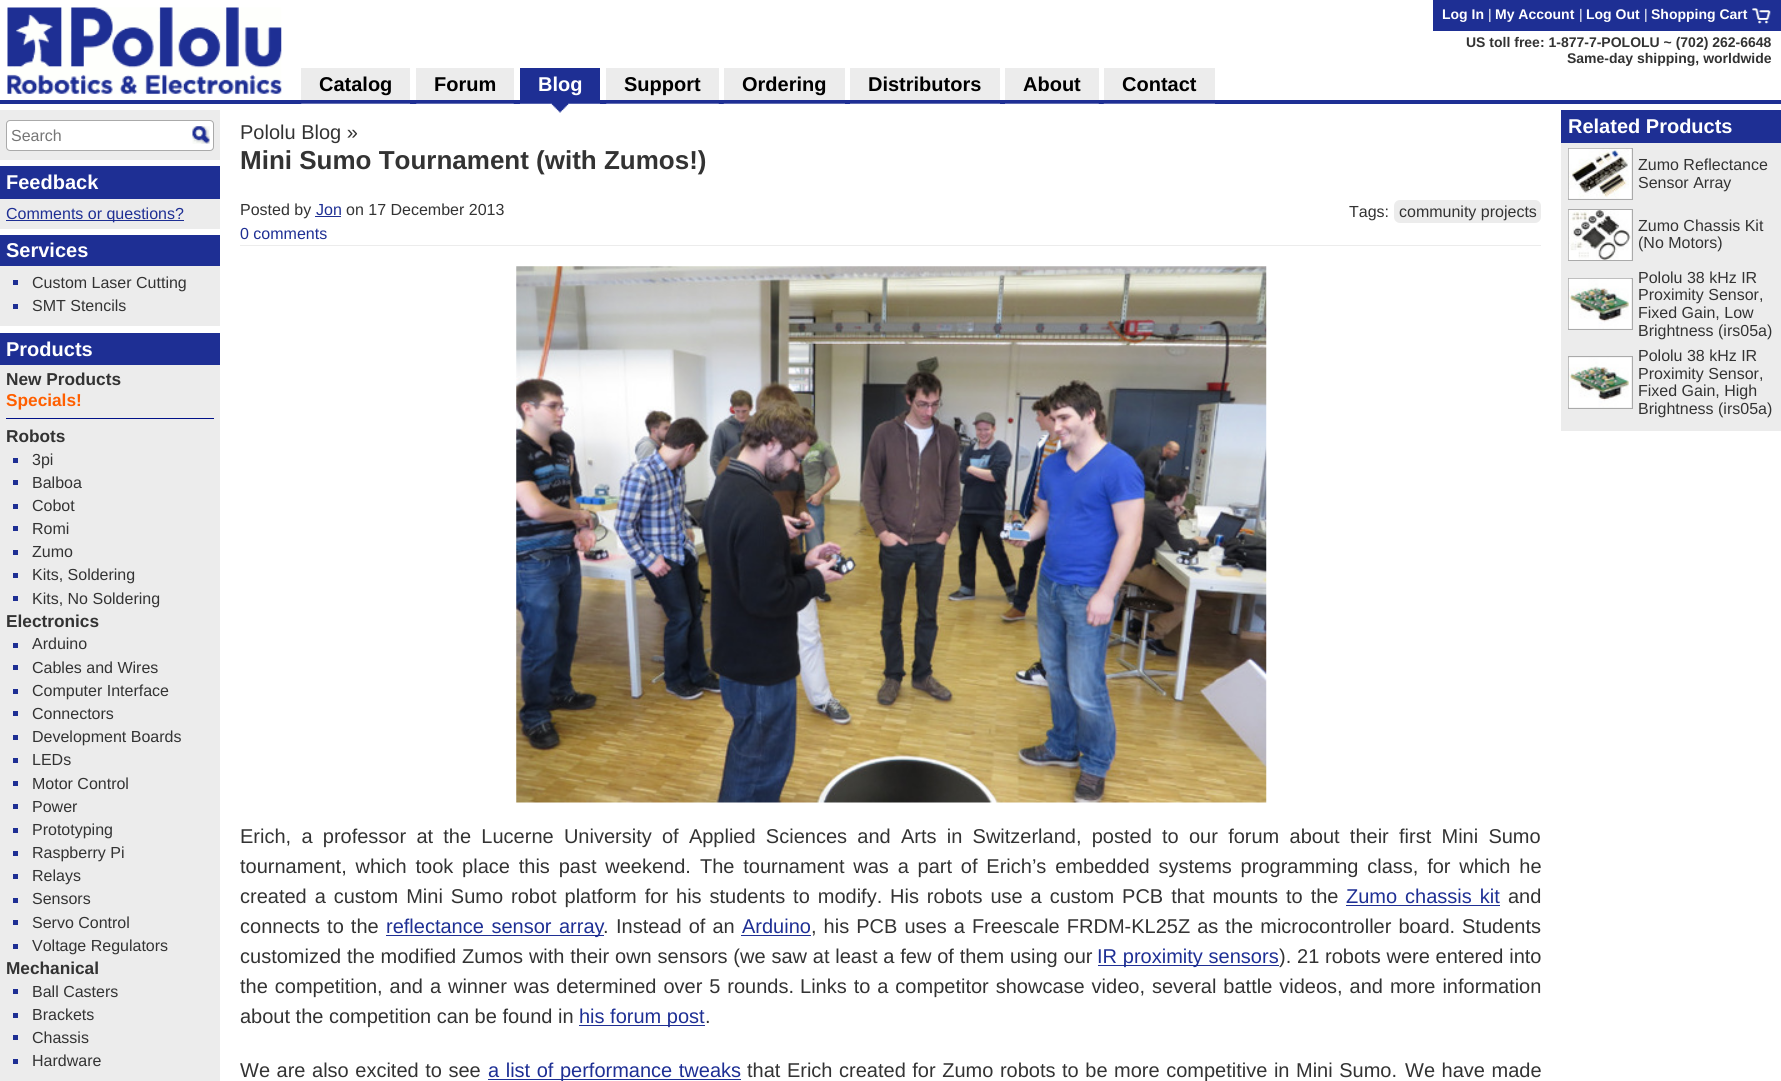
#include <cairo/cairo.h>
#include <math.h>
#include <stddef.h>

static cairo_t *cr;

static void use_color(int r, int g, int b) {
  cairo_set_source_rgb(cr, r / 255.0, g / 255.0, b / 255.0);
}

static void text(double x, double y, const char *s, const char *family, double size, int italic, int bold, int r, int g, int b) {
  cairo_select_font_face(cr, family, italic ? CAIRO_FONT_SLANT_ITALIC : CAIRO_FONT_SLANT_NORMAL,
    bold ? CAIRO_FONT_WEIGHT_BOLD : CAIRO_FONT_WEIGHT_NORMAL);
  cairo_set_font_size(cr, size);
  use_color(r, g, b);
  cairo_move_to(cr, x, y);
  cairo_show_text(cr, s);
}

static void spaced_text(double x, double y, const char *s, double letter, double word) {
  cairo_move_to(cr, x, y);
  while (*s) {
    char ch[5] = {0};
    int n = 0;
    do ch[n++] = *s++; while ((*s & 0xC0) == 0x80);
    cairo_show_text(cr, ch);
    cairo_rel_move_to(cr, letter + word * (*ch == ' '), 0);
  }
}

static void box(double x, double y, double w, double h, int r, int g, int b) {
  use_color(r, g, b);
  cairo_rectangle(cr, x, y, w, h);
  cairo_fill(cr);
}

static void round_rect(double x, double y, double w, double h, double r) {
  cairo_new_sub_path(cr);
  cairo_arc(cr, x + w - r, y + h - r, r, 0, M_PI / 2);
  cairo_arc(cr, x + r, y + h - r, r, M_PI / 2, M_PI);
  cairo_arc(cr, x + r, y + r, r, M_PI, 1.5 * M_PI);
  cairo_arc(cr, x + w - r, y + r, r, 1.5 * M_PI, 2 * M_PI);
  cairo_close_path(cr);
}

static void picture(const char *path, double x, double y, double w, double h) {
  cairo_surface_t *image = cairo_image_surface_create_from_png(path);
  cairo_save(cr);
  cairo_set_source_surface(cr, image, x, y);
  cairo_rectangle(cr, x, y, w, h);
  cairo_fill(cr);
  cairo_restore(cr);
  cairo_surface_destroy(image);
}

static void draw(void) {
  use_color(255, 255, 255);
  cairo_paint(cr);
  box(0, 100, 1781, 4, 30, 47, 148);
  picture("img_01.png", 7, 7, 275, 87);
  box(1433, 0, 348, 31, 30, 47, 148);
  picture("img_02.png", 1752, 8, 19, 16);
  picture("img_03.png", 301, 103, 109, 1);
  box(301, 68, 109, 32, 236, 236, 236);
  picture("img_04.png", 416, 103, 98, 1);
  box(416, 68, 98, 32, 236, 236, 236);
  picture("img_05.png", 520, 103, 80, 10);
  box(520, 68, 80, 32, 30, 47, 148);
  picture("img_06.png", 606, 103, 113, 1);
  box(606, 68, 113, 32, 236, 236, 236);
  picture("img_07.png", 723, 103, 122, 1);
  box(724, 68, 121, 32, 236, 236, 236);
  box(850, 103, 150, 1, 98, 109, 180);
  box(850, 68, 150, 32, 236, 236, 236);
  picture("img_08.png", 1005, 103, 94, 1);
  box(1005, 68, 94, 32, 236, 236, 236);
  picture("img_09.png", 1103, 103, 112, 1);
  box(1104, 68, 111, 32, 236, 236, 236);
  box(0, 110, 220, 50, 236, 236, 236);
  use_color(255, 255, 255);
  round_rect(6.5, 120.5, 207, 30, 3.5);
  cairo_fill_preserve(cr);
  use_color(170, 170, 170);
  cairo_set_line_width(cr, 1);
  cairo_stroke(cr);
  picture("img_10.png", 192, 126, 18, 18);
  box(0, 166, 220, 33, 30, 47, 148);
  box(0, 199, 220, 30, 236, 236, 236);
  box(6, 220, 178, 1, 30, 47, 148);
  box(0, 235, 220, 31, 30, 47, 148);
  box(0, 266, 220, 60, 236, 236, 236);
  box(13, 280, 5, 5, 30, 47, 148);
  box(13, 304, 5, 5, 30, 47, 148);
  box(0, 333, 220, 32, 30, 47, 148);
  box(0, 365, 220, 716, 236, 236, 236);
  box(6, 418, 208, 1, 0, 17, 136);
  box(13, 458, 5, 5, 30, 47, 148);
  box(13, 480, 5, 5, 30, 47, 148);
  box(13, 504, 5, 5, 30, 47, 148);
  box(13, 526, 5, 5, 30, 47, 148);
  box(13, 550, 5, 5, 30, 47, 148);
  box(13, 573, 5, 5, 30, 47, 148);
  box(13, 596, 5, 5, 30, 47, 148);
  box(13, 643, 5, 5, 30, 47, 148);
  box(13, 665, 5, 5, 30, 47, 148);
  box(13, 689, 5, 5, 30, 47, 148);
  box(13, 711, 5, 5, 30, 47, 148);
  box(13, 735, 5, 5, 30, 47, 148);
  box(13, 758, 5, 5, 30, 47, 148);
  box(13, 781, 5, 5, 30, 47, 148);
  box(13, 804, 5, 5, 30, 47, 148);
  box(13, 828, 5, 5, 30, 47, 148);
  box(13, 851, 5, 5, 30, 47, 148);
  box(13, 874, 5, 5, 30, 47, 148);
  box(13, 898, 5, 5, 30, 47, 148);
  box(13, 920, 5, 5, 30, 47, 148);
  box(13, 944, 5, 5, 30, 47, 148);
  box(13, 989, 5, 5, 30, 47, 148);
  box(13, 1013, 5, 5, 30, 47, 148);
  box(13, 1035, 5, 5, 30, 47, 148);
  box(13, 1059, 5, 5, 30, 47, 148);
  box(240, 245, 1301, 1, 236, 236, 236);
  box(315, 216, 26, 1, 30, 47, 148);
  use_color(236, 236, 236);
  round_rect(1394, 200, 147, 23, 6);
  cairo_fill(cr);
  picture("img_11.png", 516, 266, 751, 537);
  box(1346, 905, 154, 1, 30, 47, 148);
  box(386, 935, 218, 1, 30, 47, 148);
  box(741, 935, 70, 1, 30, 47, 148);
  box(1098, 965, 181, 1, 30, 47, 148);
  box(579, 1025, 126, 1, 30, 47, 148);
  box(488, 1079, 253, 1, 30, 47, 148);
  box(1561, 110, 220, 33, 30, 47, 148);
  box(1561, 143, 220, 288, 236, 236, 236);
  cairo_rectangle(cr, 1568.5, 148.5, 64, 51);
  use_color(170, 170, 170);
  cairo_stroke(cr);
  picture("img_12.png", 1568, 148, 64, 51);
  cairo_rectangle(cr, 1568.5, 209.5, 64, 51);
  cairo_stroke(cr);
  picture("img_13.png", 1568, 210, 64, 50);
  cairo_rectangle(cr, 1568.5, 278.5, 64, 51);
  cairo_stroke(cr);
  picture("img_14.png", 1568, 278, 64, 51);
  cairo_rectangle(cr, 1568.5, 356.5, 64, 52);
  cairo_stroke(cr);
  picture("img_15.png", 1568, 357, 64, 51);
  text(1442, 19, "Log In", "Liberation Sans", 14, 0, 1, 255, 255, 255);
  text(1488, 19, "|", "Liberation Sans", 14, 0, 0, 255, 255, 255);
  text(1495, 19, "My Account", "Liberation Sans", 14, 0, 1, 255, 255, 255);
  text(1579, 19, "|", "Liberation Sans", 14, 0, 0, 255, 255, 255);
  text(1586, 19, "Log Out", "Liberation Sans", 14, 0, 1, 255, 255, 255);
  text(1644, 19, "|", "Liberation Sans", 14, 0, 0, 255, 255, 255);
  text(1651, 19, "Shopping Cart", "Liberation Sans", 14, 0, 1, 255, 255, 255);
  text(1466, 47, "US toll free: 1-877-7-POLOLU ~ (702) 262-6648", "Liberation Sans", 14, 0, 1, 51, 51, 51);
  text(1567, 63, "Same-day shipping, worldwide", "Liberation Sans", 14, 0, 1, 51, 51, 51);
  text(319, 91, "Catalog", "Liberation Sans", 20, 0, 1, 0, 0, 0);
  text(434, 91, "Forum", "Liberation Sans", 20, 0, 1, 0, 0, 0);
  text(538, 91, "Blog", "Liberation Sans", 20, 0, 1, 255, 255, 255);
  text(624, 91, "Support", "Liberation Sans", 20, 0, 1, 0, 0, 0);
  text(742, 91, "Ordering", "Liberation Sans", 20, 0, 1, 0, 0, 0);
  text(868, 91, "Distributors", "Liberation Sans", 20, 0, 1, 0, 0, 0);
  text(1023, 91, "About", "Liberation Sans", 20, 0, 1, 0, 0, 0);
  text(1122, 91, "Contact", "Liberation Sans", 20, 0, 1, 0, 0, 0);
  text(11, 141, "Search", "Liberation Sans", 16, 0, 0, 117, 117, 117);
  text(6, 189, "Feedback", "Liberation Sans", 20, 0, 1, 255, 255, 255);
  text(6, 219, "Comments or questions?", "Liberation Sans", 16, 0, 0, 30, 47, 148);
  text(6, 257, "Services", "Liberation Sans", 20, 0, 1, 255, 255, 255);
  text(32, 288, "Custom Laser Cutting", "Liberation Sans", 16, 0, 0, 51, 51, 51);
  text(32, 311, "SMT Stencils", "Liberation Sans", 16, 0, 0, 51, 51, 51);
  text(6, 356, "Products", "Liberation Sans", 20, 0, 1, 255, 255, 255);
  text(6, 385, "New Products", "Liberation Sans", 17.25, 0, 1, 51, 51, 51);
  text(6, 406, "Specials!", "Liberation Sans", 17.25, 0, 1, 255, 95, 0);
  text(6, 442, "Robots", "Liberation Sans", 17.25, 0, 1, 51, 51, 51);
  text(32, 465, "3pi", "Liberation Sans", 16, 0, 0, 51, 51, 51);
  text(32, 488, "Balboa", "Liberation Sans", 16, 0, 0, 51, 51, 51);
  text(32, 511, "Cobot", "Liberation Sans", 16, 0, 0, 51, 51, 51);
  text(32, 534, "Romi", "Liberation Sans", 16, 0, 0, 51, 51, 51);
  text(32, 557, "Zumo", "Liberation Sans", 16, 0, 0, 51, 51, 51);
  text(32, 580, "Kits, Soldering", "Liberation Sans", 16, 0, 0, 51, 51, 51);
  text(32, 604, "Kits, No Soldering", "Liberation Sans", 16, 0, 0, 51, 51, 51);
  text(6, 627, "Electronics", "Liberation Sans", 17.25, 0, 1, 51, 51, 51);
  text(32, 649, "Arduino", "Liberation Sans", 16, 0, 0, 51, 51, 51);
  text(32, 673, "Cables and Wires", "Liberation Sans", 16, 0, 0, 51, 51, 51);
  text(32, 696, "Computer Interface", "Liberation Sans", 16, 0, 0, 51, 51, 51);
  text(32, 719, "Connectors", "Liberation Sans", 16, 0, 0, 51, 51, 51);
  text(32, 742, "Development Boards", "Liberation Sans", 16, 0, 0, 51, 51, 51);
  text(32, 765, "LEDs", "Liberation Sans", 16, 0, 0, 51, 51, 51);
  text(32, 789, "Motor Control", "Liberation Sans", 16, 0, 0, 51, 51, 51);
  text(32, 812, "Power", "Liberation Sans", 16, 0, 0, 51, 51, 51);
  text(32, 835, "Prototyping", "Liberation Sans", 16, 0, 0, 51, 51, 51);
  text(32, 858, "Raspberry Pi", "Liberation Sans", 16, 0, 0, 51, 51, 51);
  text(32, 881, "Relays", "Liberation Sans", 16, 0, 0, 51, 51, 51);
  text(32, 904, "Sensors", "Liberation Sans", 16, 0, 0, 51, 51, 51);
  text(32, 928, "Servo Control", "Liberation Sans", 16, 0, 0, 51, 51, 51);
  text(32, 951, "Voltage Regulators", "Liberation Sans", 16, 0, 0, 51, 51, 51);
  text(6, 974, "Mechanical", "Liberation Sans", 17.25, 0, 1, 51, 51, 51);
  text(32, 997, "Ball Casters", "Liberation Sans", 16, 0, 0, 51, 51, 51);
  text(32, 1020, "Brackets", "Liberation Sans", 16, 0, 0, 51, 51, 51);
  text(32, 1043, "Chassis", "Liberation Sans", 16, 0, 0, 51, 51, 51);
  text(32, 1066, "Hardware", "Liberation Sans", 16, 0, 0, 51, 51, 51);
  text(240, 139, "Pololu Blog »", "Liberation Sans", 20, 0, 0, 51, 51, 51);
  text(240, 169, "Mini Sumo Tournament (with Zumos!)", "Liberation Sans", 26, 0, 1, 51, 51, 51);
  text(240, 215, "Posted by", "Liberation Sans", 16, 0, 0, 51, 51, 51);
  text(316, 215, "Jon", "Liberation Sans", 16, 0, 0, 30, 47, 148);
  text(346, 215, "on 17 December 2013", "Liberation Sans", 16, 0, 0, 51, 51, 51);
  text(240, 239, "0 comments", "Liberation Sans", 16, 0, 0, 30, 47, 148);
  text(1349, 217, "Tags:", "Liberation Sans", 16, 0, 0, 51, 51, 51);
  text(1399, 217, "community projects", "Liberation Sans", 16, 0, 0, 51, 51, 51);
  cairo_set_font_size(cr, 20);
  spaced_text(240, 843, "Erich, a professor at the Lucerne University of Applied Sciences and Arts in Switzerland, posted to our forum about their first Mini Sumo", 0, 4.7);
  spaced_text(240, 873, "tournament, which took place this past weekend.", 0, 3.25);
  spaced_text(700, 873, "The tournament was a part of Erich’s embedded systems programming class, for which he", 0, 3.25);
  spaced_text(240, 903, "created a custom Mini Sumo robot platform for his students to modify.", 0, 2.4);
  spaced_text(890, 903, "His robots use a custom PCB that mounts to the", 0, 2.4);
  use_color(30, 47, 148);
  spaced_text(1346, 903, "Zumo chassis kit", 0, 2.4);
  text(1508, 903, "and", "Liberation Sans", 20, 0, 0, 51, 51, 51);
  spaced_text(240, 933, "connects to the", 0, 1.5);
  use_color(30, 47, 148);
  spaced_text(386, 933, "reflectance sensor array", 0, 2);
  text(603, 933, ".", "Liberation Sans", 20, 0, 0, 51, 51, 51);
  spaced_text(616, 933, "Instead of an", 0, 1.5);
  text(742, 933, "Arduino", "Liberation Sans", 20, 0, 0, 30, 47, 148);
  use_color(51, 51, 51);
  spaced_text(811, 933, ", his PCB uses a Freescale FRDM-KL25Z as the microcontroller board.", 0, 1.5);
  text(1462, 933, "Students", "Liberation Sans", 20, 0, 0, 51, 51, 51);
  spaced_text(240, 963, "customized the modified Zumos with their own sensors (we saw at least a few of them using our", 0, 0.25);
  use_color(30, 47, 148);
  spaced_text(1097, 963, "IR proximity sensors", 0, 0.25);
  text(1279, 963, ").", "Liberation Sans", 20, 0, 0, 51, 51, 51);
  spaced_text(1297, 963, "21 robots were entered into", 0, 0.25);
  spaced_text(240, 993, "the competition, and a winner was determined over 5 rounds.", 0, 1.4);
  spaced_text(800, 993, "Links to a competitor showcase video, several battle videos, and more information", 0, 1.4);
  text(240, 1023, "about the competition can be found in", "Liberation Sans", 20, 0, 0, 51, 51, 51);
  text(579, 1023, "his forum post", "Liberation Sans", 20, 0, 0, 30, 47, 148);
  text(705, 1023, ".", "Liberation Sans", 20, 0, 0, 51, 51, 51);
  spaced_text(240, 1077, "We are also excited to see", 0, 1);
  use_color(30, 47, 148);
  spaced_text(488, 1077, "a list of performance tweaks", 0, 1);
  use_color(51, 51, 51);
  spaced_text(747, 1077, "that Erich created for Zumo robots to be more competitive in Mini Sumo.", 0, 1);
  spaced_text(1405, 1077, "We have made", 0, 1);
  text(1568, 133, "Related Products", "Liberation Sans", 20, 0, 1, 255, 255, 255);
  text(1638, 170, "Zumo Reflectance", "Liberation Sans", 16, 0, 0, 51, 51, 51);
  text(1638, 188, "Sensor Array", "Liberation Sans", 16, 0, 0, 51, 51, 51);
  text(1638, 231, "Zumo Chassis Kit", "Liberation Sans", 16, 0, 0, 51, 51, 51);
  text(1638, 248, "(No Motors)", "Liberation Sans", 16, 0, 0, 51, 51, 51);
  text(1638, 283, "Pololu 38 kHz IR", "Liberation Sans", 16, 0, 0, 51, 51, 51);
  text(1638, 300, "Proximity Sensor,", "Liberation Sans", 16, 0, 0, 51, 51, 51);
  text(1638, 318, "Fixed Gain, Low", "Liberation Sans", 16, 0, 0, 51, 51, 51);
  text(1638, 336, "Brightness (irs05a)", "Liberation Sans", 16, 0, 0, 51, 51, 51);
  text(1638, 361, "Pololu 38 kHz IR", "Liberation Sans", 16, 0, 0, 51, 51, 51);
  text(1638, 379, "Proximity Sensor,", "Liberation Sans", 16, 0, 0, 51, 51, 51);
  text(1638, 396, "Fixed Gain, High", "Liberation Sans", 16, 0, 0, 51, 51, 51);
  text(1638, 414, "Brightness (irs05a)", "Liberation Sans", 16, 0, 0, 51, 51, 51);
}

int main(void) {
  cairo_surface_t *surface = cairo_image_surface_create(CAIRO_FORMAT_RGB24, 1781, 1081);
  cr = cairo_create(surface);
  cairo_font_options_t *options = cairo_font_options_create();
  cairo_font_options_set_hint_metrics(options, CAIRO_HINT_METRICS_OFF);
  cairo_font_options_set_hint_style(options, CAIRO_HINT_STYLE_NONE);
  cairo_set_font_options(cr, options);
  cairo_set_miter_limit(cr, 4);
  draw();
  cairo_surface_write_to_png(surface, "out.png");
  cairo_font_options_destroy(options);
  cairo_destroy(cr);
  cairo_surface_destroy(surface);
  return 0;
}
